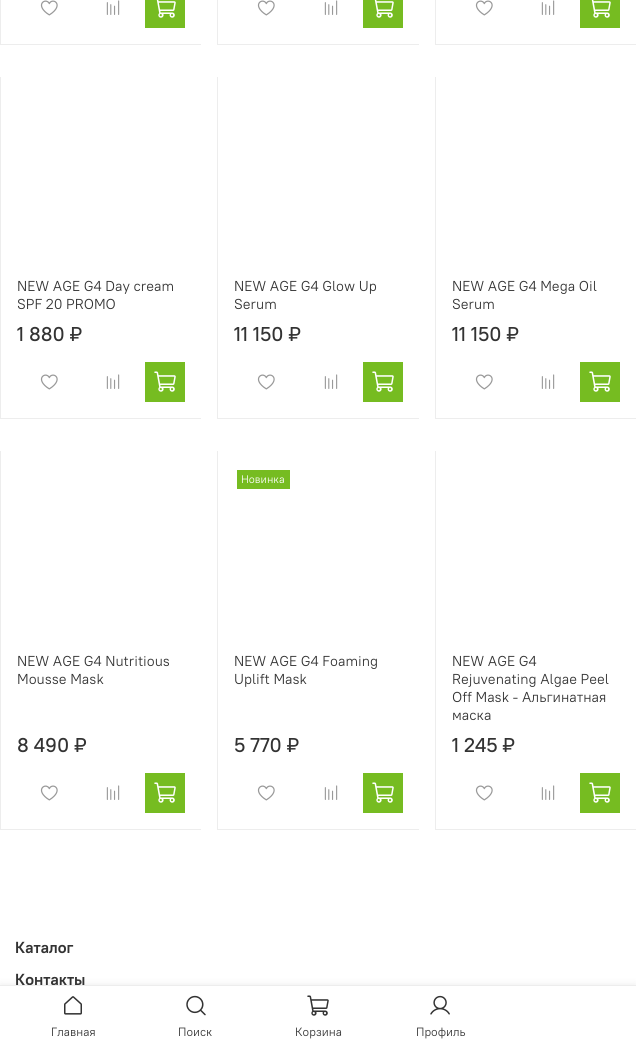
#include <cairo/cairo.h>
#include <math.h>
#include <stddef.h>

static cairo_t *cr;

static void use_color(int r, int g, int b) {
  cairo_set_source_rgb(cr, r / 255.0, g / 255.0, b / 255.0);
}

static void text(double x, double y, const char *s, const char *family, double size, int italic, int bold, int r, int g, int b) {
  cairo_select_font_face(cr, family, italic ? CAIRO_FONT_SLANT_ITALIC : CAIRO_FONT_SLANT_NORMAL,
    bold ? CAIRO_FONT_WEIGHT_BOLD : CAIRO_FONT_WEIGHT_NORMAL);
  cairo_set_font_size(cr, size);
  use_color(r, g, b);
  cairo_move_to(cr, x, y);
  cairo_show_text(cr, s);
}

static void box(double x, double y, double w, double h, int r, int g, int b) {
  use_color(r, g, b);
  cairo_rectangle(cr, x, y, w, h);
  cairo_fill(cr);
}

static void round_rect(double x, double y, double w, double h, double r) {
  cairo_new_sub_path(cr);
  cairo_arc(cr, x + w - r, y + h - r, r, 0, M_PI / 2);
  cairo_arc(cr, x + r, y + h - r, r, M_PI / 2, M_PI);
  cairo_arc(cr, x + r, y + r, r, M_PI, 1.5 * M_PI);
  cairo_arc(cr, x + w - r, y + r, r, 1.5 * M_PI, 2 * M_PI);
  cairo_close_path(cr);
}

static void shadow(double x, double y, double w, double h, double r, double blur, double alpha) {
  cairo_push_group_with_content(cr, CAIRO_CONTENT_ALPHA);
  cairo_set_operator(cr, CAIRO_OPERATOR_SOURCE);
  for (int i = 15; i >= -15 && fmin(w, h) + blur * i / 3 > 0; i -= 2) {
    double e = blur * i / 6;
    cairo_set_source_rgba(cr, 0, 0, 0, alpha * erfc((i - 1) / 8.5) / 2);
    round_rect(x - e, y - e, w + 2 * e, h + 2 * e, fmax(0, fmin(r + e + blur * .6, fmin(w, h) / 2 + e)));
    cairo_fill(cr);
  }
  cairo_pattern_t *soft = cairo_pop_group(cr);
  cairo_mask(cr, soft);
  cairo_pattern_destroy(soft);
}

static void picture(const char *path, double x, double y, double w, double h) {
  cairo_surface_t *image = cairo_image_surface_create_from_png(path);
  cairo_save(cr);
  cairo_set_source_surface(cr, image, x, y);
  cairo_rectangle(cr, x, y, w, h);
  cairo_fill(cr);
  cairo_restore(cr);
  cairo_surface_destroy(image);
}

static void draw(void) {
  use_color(255, 255, 255);
  cairo_paint(cr);
  box(0, 44, 201, 1, 237, 237, 237);
  box(0, 0, 1, 45, 237, 237, 237);
  picture("img_01.png", 40, 0, 18, 16);
  picture("img_02.png", 106, 0, 14, 15);
  box(145, 0, 40, 28, 118, 188, 33);
  picture("img_03.png", 156, 0, 20, 18);
  box(217, 44, 202, 1, 237, 237, 237);
  box(217, 0, 1, 45, 237, 237, 237);
  picture("img_01.png", 257, 0, 18, 16);
  picture("img_02.png", 324, 0, 14, 15);
  box(363, 0, 40, 28, 118, 188, 33);
  picture("img_03.png", 374, 0, 20, 18);
  box(435, 44, 201, 1, 237, 237, 237);
  box(435, 0, 1, 45, 237, 237, 237);
  picture("img_01.png", 475, 0, 18, 16);
  picture("img_02.png", 541, 0, 14, 15);
  box(580, 0, 40, 28, 118, 188, 33);
  picture("img_03.png", 591, 0, 20, 18);
  box(0, 418, 201, 1, 237, 237, 237);
  box(0, 77, 1, 342, 237, 237, 237);
  picture("img_01.png", 40, 374, 18, 16);
  picture("img_02.png", 106, 374, 14, 15);
  box(145, 362, 40, 40, 118, 188, 33);
  picture("img_04.png", 154, 371, 22, 21);
  box(217, 418, 202, 1, 237, 237, 237);
  box(217, 77, 1, 342, 237, 237, 237);
  picture("img_01.png", 257, 374, 18, 16);
  picture("img_02.png", 324, 374, 14, 15);
  box(363, 362, 40, 40, 118, 188, 33);
  picture("img_04.png", 372, 371, 22, 21);
  box(435, 418, 201, 1, 237, 237, 237);
  box(435, 77, 1, 342, 237, 237, 237);
  picture("img_01.png", 475, 374, 18, 16);
  picture("img_02.png", 541, 374, 14, 15);
  box(580, 362, 40, 40, 118, 188, 33);
  picture("img_04.png", 589, 371, 22, 21);
  box(0, 829, 201, 1, 237, 237, 237);
  box(0, 451, 1, 379, 237, 237, 237);
  picture("img_01.png", 40, 785, 18, 16);
  picture("img_02.png", 106, 785, 14, 15);
  box(145, 773, 40, 40, 118, 188, 33);
  picture("img_04.png", 154, 782, 22, 21);
  box(217, 829, 202, 1, 237, 237, 237);
  box(217, 451, 1, 379, 237, 237, 237);
  box(237, 470, 53, 19, 118, 188, 33);
  picture("img_01.png", 257, 785, 18, 16);
  picture("img_02.png", 324, 785, 14, 15);
  box(363, 773, 40, 40, 118, 188, 33);
  picture("img_04.png", 372, 782, 22, 21);
  box(435, 829, 201, 1, 237, 237, 237);
  box(435, 451, 1, 379, 237, 237, 237);
  picture("img_01.png", 475, 785, 18, 16);
  picture("img_02.png", 541, 785, 14, 15);
  box(580, 773, 40, 40, 118, 188, 33);
  picture("img_04.png", 589, 782, 22, 21);
  use_color(0, 0, 0);
  shadow(0, 987, 636, 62, 0, 5, 0.12);
  box(0, 986, 636, 61, 255, 255, 255);
  picture("img_05.png", 64, 996, 18, 19);
  picture("img_06.png", 186, 995, 20, 21);
  picture("img_07.png", 307, 995, 22, 21);
  picture("img_08.png", 430, 995, 20, 20);
  text(17, 291, "NEW AGE G4 Day cream", "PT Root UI", 14.4, 0, 0, 51, 51, 51);
  text(17, 309, "SPF 20 PROMO", "PT Root UI", 14.4, 0, 0, 51, 51, 51);
  text(17, 341, "1 880 ₽", "PT Root UI Medium", 20, 0, 0, 51, 51, 51);
  text(234, 291, "NEW AGE G4 Glow Up", "PT Root UI", 14.4, 0, 0, 51, 51, 51);
  text(234, 309, "Serum", "PT Root UI", 14.4, 0, 0, 51, 51, 51);
  text(234, 341, "11 150 ₽", "PT Root UI Medium", 20, 0, 0, 51, 51, 51);
  text(452, 291, "NEW AGE G4 Mega Oil", "PT Root UI", 14.4, 0, 0, 51, 51, 51);
  text(452, 309, "Serum", "PT Root UI", 14.4, 0, 0, 51, 51, 51);
  text(452, 341, "11 150 ₽", "PT Root UI Medium", 20, 0, 0, 51, 51, 51);
  text(17, 666, "NEW AGE G4 Nutritious", "PT Root UI", 14.4, 0, 0, 51, 51, 51);
  text(17, 684, "Mousse Mask", "PT Root UI", 14.4, 0, 0, 51, 51, 51);
  text(17, 752, "8 490 ₽", "PT Root UI Medium", 20, 0, 0, 51, 51, 51);
  text(241, 483, "Новинка", "PT Root UI", 11, 0, 0, 255, 255, 255);
  text(234, 666, "NEW AGE G4 Foaming", "PT Root UI", 14.4, 0, 0, 51, 51, 51);
  text(234, 684, "Uplift Mask", "PT Root UI", 14.4, 0, 0, 51, 51, 51);
  text(234, 752, "5 770 ₽", "PT Root UI Medium", 20, 0, 0, 51, 51, 51);
  text(452, 666, "NEW AGE G4", "PT Root UI", 14.4, 0, 0, 51, 51, 51);
  text(452, 684, "Rejuvenating Algae Peel", "PT Root UI", 14.4, 0, 0, 51, 51, 51);
  text(452, 702, "Off Mask - Альгинатная", "PT Root UI", 14.4, 0, 0, 51, 51, 51);
  text(452, 720, "маска", "PT Root UI", 14.4, 0, 0, 51, 51, 51);
  text(452, 752, "1 245 ₽", "PT Root UI Medium", 20, 0, 0, 51, 51, 51);
  text(15, 953, "Каталог", "PT Root UI", 16, 0, 1, 51, 51, 51);
  text(15, 985, "Контакты", "PT Root UI", 16, 0, 1, 51, 51, 51);
  box(0, 985, 636, 1, 237, 237, 237);
  text(51, 1036, "Главная", "PT Root UI", 12, 0, 0, 51, 51, 51);
  text(178, 1036, "Поиск", "PT Root UI", 12, 0, 0, 51, 51, 51);
  text(295, 1036, "Корзина", "PT Root UI", 12, 0, 0, 51, 51, 51);
  text(416, 1036, "Профиль", "PT Root UI", 12, 0, 0, 51, 51, 51);
}

int main(void) {
  cairo_surface_t *surface = cairo_image_surface_create(CAIRO_FORMAT_RGB24, 636, 1047);
  cr = cairo_create(surface);
  cairo_font_options_t *options = cairo_font_options_create();
  cairo_font_options_set_hint_metrics(options, CAIRO_HINT_METRICS_OFF);
  cairo_font_options_set_hint_style(options, CAIRO_HINT_STYLE_NONE);
  cairo_set_font_options(cr, options);
  cairo_set_miter_limit(cr, 4);
  draw();
  cairo_surface_write_to_png(surface, "out.png");
  cairo_font_options_destroy(options);
  cairo_destroy(cr);
  cairo_surface_destroy(surface);
  return 0;
}
